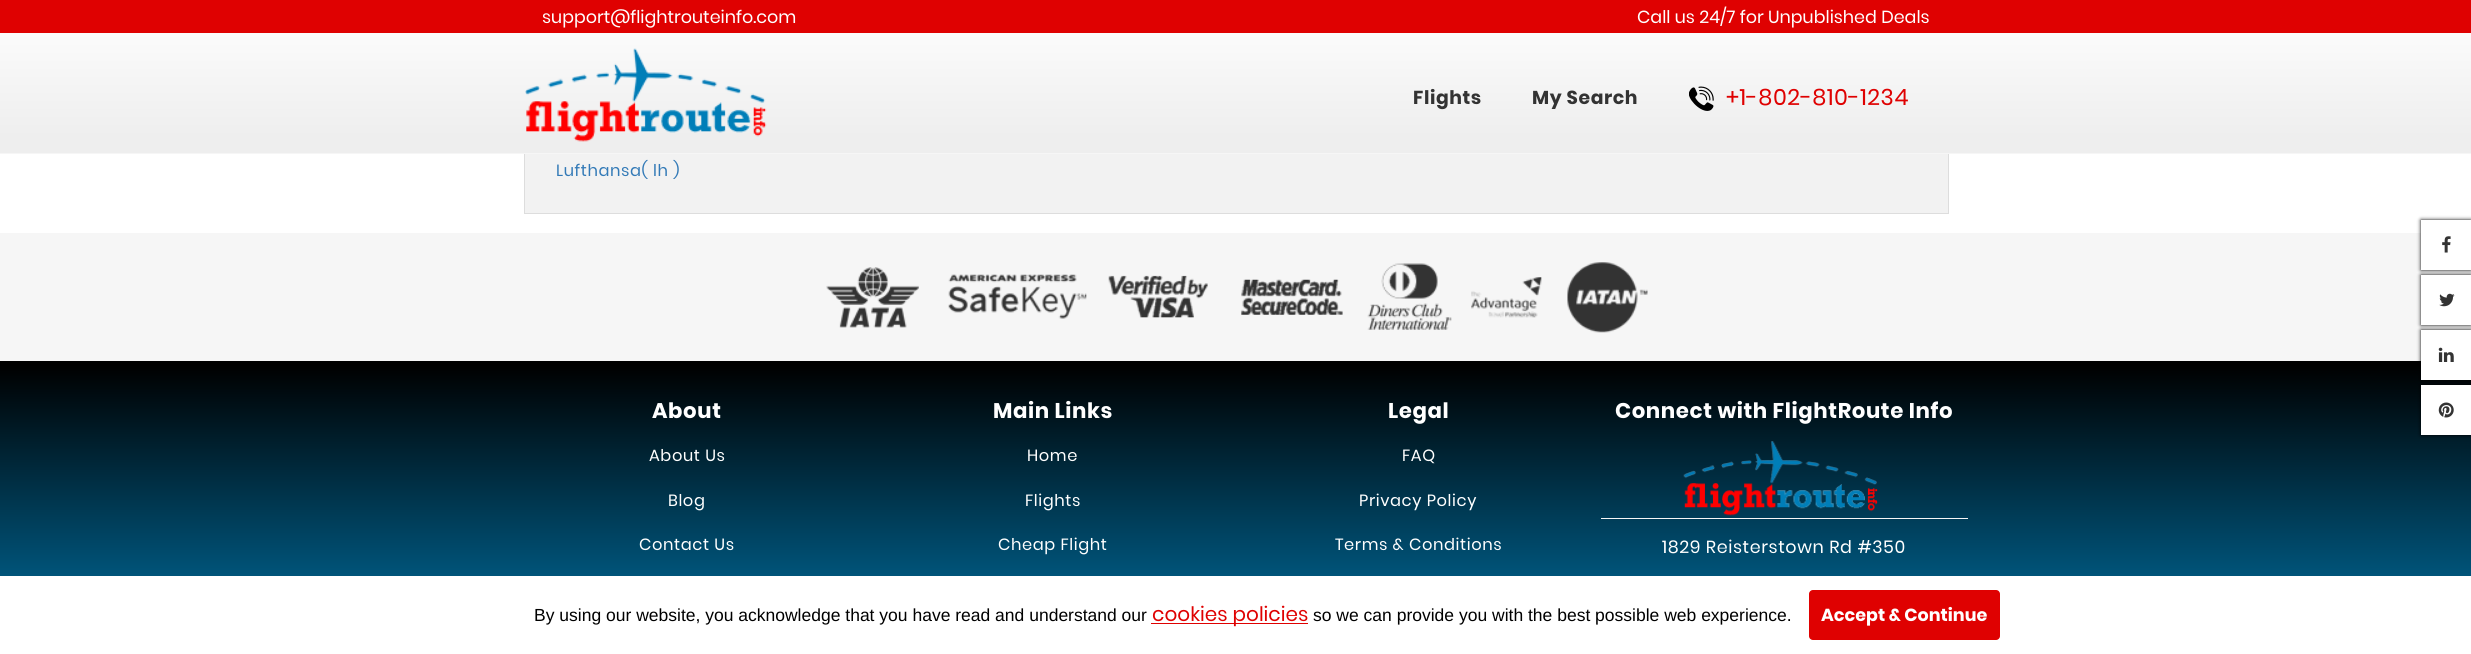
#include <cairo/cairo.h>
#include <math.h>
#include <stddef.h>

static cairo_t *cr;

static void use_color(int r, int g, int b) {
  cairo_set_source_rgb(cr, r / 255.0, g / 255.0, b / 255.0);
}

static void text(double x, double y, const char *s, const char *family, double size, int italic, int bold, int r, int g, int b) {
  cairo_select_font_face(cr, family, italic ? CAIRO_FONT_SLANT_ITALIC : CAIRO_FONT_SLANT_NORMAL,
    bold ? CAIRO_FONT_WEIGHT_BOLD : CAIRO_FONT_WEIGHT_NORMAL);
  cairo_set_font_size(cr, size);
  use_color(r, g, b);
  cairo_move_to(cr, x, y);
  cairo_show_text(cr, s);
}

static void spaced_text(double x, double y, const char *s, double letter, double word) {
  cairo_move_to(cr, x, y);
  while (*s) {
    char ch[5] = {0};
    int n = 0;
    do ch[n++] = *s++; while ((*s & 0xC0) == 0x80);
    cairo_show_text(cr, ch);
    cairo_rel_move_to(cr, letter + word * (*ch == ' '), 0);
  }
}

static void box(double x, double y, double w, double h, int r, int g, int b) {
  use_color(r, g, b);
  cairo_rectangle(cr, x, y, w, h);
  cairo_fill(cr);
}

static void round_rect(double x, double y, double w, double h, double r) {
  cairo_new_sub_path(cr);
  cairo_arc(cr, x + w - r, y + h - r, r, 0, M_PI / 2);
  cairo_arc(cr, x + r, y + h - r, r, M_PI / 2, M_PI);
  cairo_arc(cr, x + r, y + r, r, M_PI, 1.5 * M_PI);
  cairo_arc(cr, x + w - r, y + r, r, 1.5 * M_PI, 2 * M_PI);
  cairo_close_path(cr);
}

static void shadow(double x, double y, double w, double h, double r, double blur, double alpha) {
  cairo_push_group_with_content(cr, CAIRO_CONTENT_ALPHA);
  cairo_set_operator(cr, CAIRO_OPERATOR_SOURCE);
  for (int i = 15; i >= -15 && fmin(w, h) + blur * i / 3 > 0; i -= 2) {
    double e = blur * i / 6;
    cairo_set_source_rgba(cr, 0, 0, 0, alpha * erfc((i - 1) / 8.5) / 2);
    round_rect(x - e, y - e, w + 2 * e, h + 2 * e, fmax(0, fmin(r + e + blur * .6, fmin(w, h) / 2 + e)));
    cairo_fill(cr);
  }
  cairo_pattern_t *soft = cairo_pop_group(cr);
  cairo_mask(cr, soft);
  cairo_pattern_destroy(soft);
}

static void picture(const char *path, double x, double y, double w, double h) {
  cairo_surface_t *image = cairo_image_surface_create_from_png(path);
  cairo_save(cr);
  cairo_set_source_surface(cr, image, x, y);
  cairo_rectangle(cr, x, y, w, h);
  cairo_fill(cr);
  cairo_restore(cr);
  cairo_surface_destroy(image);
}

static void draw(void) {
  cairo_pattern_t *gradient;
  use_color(255, 255, 255);
  cairo_paint(cr);
  box(525, 154, 1423, 59, 242, 242, 242);
  cairo_rectangle(cr, 524.5, -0.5, 1424, 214);
  use_color(221, 221, 221);
  cairo_set_line_width(cr, 1);
  cairo_stroke(cr);
  box(0, 0, 2471, 33, 223, 1, 1);
  gradient = cairo_pattern_create_linear(1236, 0, 1236, 153);
  cairo_pattern_add_color_stop_rgba(gradient, 0.01, 1, 1, 1, 1);
  cairo_pattern_add_color_stop_rgba(gradient, 0.9, 0.933, 0.933, 0.933, 1);
  cairo_set_source(cr, gradient);
  cairo_pattern_destroy(gradient);
  cairo_rectangle(cr, 0, 33, 2471, 120);
  cairo_fill(cr);
  box(0, 153, 2471, 1, 246, 246, 246);
  picture("img_01.png", 525, 48, 242, 94);
  picture("img_02.png", 1689, 86, 25, 25);
  box(0, 233, 2471, 128, 246, 246, 246);
  use_color(0, 0, 0);
  shadow(2421, 220, 50, 50, 0, 2, 1);
  box(2421, 220, 50, 50, 255, 255, 255);
  picture("img_03.png", 2442, 236, 9, 17);
  use_color(0, 0, 0);
  shadow(2421, 275, 50, 50, 0, 2, 1);
  box(2421, 275, 50, 50, 255, 255, 255);
  picture("img_04.png", 2439, 293, 16, 14);
  gradient = cairo_pattern_create_linear(1236, 361, 1236, 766);
  cairo_pattern_add_color_stop_rgba(gradient, 0.01, 0, 0, 0, 1);
  cairo_pattern_add_color_stop_rgba(gradient, 0.8, 0, 0.498, 0.722, 1);
  cairo_set_source(cr, gradient);
  cairo_pattern_destroy(gradient);
  cairo_rectangle(cr, 0, 361, 2471, 215);
  cairo_fill(cr);
  use_color(0, 0, 0);
  shadow(2421, 330, 50, 50, 0, 2, 1);
  box(2421, 330, 50, 50, 255, 255, 255);
  picture("img_05.png", 2438, 347, 16, 15);
  use_color(0, 0, 0);
  shadow(2421, 385, 50, 50, 0, 2, 1);
  box(2421, 385, 50, 50, 255, 255, 255);
  picture("img_06.png", 2438, 402, 16, 16);
  picture("img_07.png", 826, 262, 822, 71);
  picture("img_08.png", 1683, 441, 195, 75);
  box(1601, 518, 367, 1, 246, 246, 246);
  box(1151, 623, 157, 1, 223, 1, 1);
  round_rect(1809, 590, 191, 50, 4);
  cairo_fill(cr);
  text(542, 23, "support@flightrouteinfo.com", "Poppins", 17.5, 0, 0, 255, 255, 255);
  text(1637, 23, "Call us 24/7 for Unpublished Deals", "Poppins", 17.5, 0, 0, 255, 255, 255);
  cairo_select_font_face(cr, "Poppins", CAIRO_FONT_SLANT_NORMAL, CAIRO_FONT_WEIGHT_BOLD);
  cairo_set_font_size(cr, 18.75);
  use_color(51, 51, 51);
  spaced_text(1413, 104, "Flights", 0.6, 0);
  spaced_text(1532, 104, "My Search", 0.6, 0);
  cairo_select_font_face(cr, "Poppins", CAIRO_FONT_SLANT_NORMAL, CAIRO_FONT_WEIGHT_NORMAL);
  cairo_set_font_size(cr, 22.5);
  use_color(223, 1, 1);
  spaced_text(1726, 105, "+1-802-810-1234", 0.6, 0);
  cairo_set_font_size(cr, 16.25);
  use_color(51, 122, 183);
  spaced_text(556, 176, "Lufthansa( lh )", 0.6, 0);
  cairo_select_font_face(cr, "Poppins", CAIRO_FONT_SLANT_NORMAL, CAIRO_FONT_WEIGHT_BOLD);
  cairo_set_font_size(cr, 21.25);
  use_color(255, 255, 255);
  spaced_text(652, 418, "About", 0.6, 0);
  cairo_select_font_face(cr, "Poppins", CAIRO_FONT_SLANT_NORMAL, CAIRO_FONT_WEIGHT_NORMAL);
  cairo_set_font_size(cr, 16.25);
  spaced_text(649, 461, "About Us", 0.6, 0);
  spaced_text(668, 506, "Blog", 0.6, 0);
  spaced_text(639, 550, "Contact Us", 0.6, 0);
  cairo_select_font_face(cr, "Poppins", CAIRO_FONT_SLANT_NORMAL, CAIRO_FONT_WEIGHT_BOLD);
  cairo_set_font_size(cr, 21.25);
  spaced_text(993, 418, "Main Links", 0.6, 0);
  cairo_select_font_face(cr, "Poppins", CAIRO_FONT_SLANT_NORMAL, CAIRO_FONT_WEIGHT_NORMAL);
  cairo_set_font_size(cr, 16.25);
  spaced_text(1027, 461, "Home", 0.6, 0);
  spaced_text(1025, 506, "Flights", 0.6, 0);
  spaced_text(998, 550, "Cheap Flight", 0.6, 0);
  cairo_select_font_face(cr, "Poppins", CAIRO_FONT_SLANT_NORMAL, CAIRO_FONT_WEIGHT_BOLD);
  cairo_set_font_size(cr, 21.25);
  spaced_text(1388, 418, "Legal", 0.6, 0);
  cairo_select_font_face(cr, "Poppins", CAIRO_FONT_SLANT_NORMAL, CAIRO_FONT_WEIGHT_NORMAL);
  cairo_set_font_size(cr, 16.25);
  spaced_text(1402, 461, "FAQ", 0.6, 0);
  spaced_text(1359, 506, "Privacy Policy", 0.6, 0);
  spaced_text(1335, 550, "Terms & Conditions", 0.6, 0);
  cairo_select_font_face(cr, "Poppins", CAIRO_FONT_SLANT_NORMAL, CAIRO_FONT_WEIGHT_BOLD);
  cairo_set_font_size(cr, 21.25);
  spaced_text(1615, 418, "Connect with FlightRoute Info", 0.6, 0);
  cairo_select_font_face(cr, "Poppins", CAIRO_FONT_SLANT_NORMAL, CAIRO_FONT_WEIGHT_NORMAL);
  cairo_set_font_size(cr, 17.5);
  spaced_text(1662, 553, "1829 Reisterstown Rd #350", 0.6, 0);
  text(534, 621, "By using our website, you acknowledge that you have read and understand our", "Liberation Sans", 17.5, 0, 0, 0, 0, 0);
  text(1152, 621, "cookies policies", "Poppins", 20, 0, 0, 223, 1, 1);
  text(1313, 621, "so we can provide you with the best possible web experience.", "Liberation Sans", 17.5, 0, 0, 0, 0, 0);
  text(1821, 621, "Accept & Continue", "Poppins", 17.5, 0, 1, 255, 255, 255);
}

int main(void) {
  cairo_surface_t *surface = cairo_image_surface_create(CAIRO_FORMAT_RGB24, 2471, 654);
  cr = cairo_create(surface);
  cairo_font_options_t *options = cairo_font_options_create();
  cairo_font_options_set_hint_metrics(options, CAIRO_HINT_METRICS_OFF);
  cairo_font_options_set_hint_style(options, CAIRO_HINT_STYLE_NONE);
  cairo_set_font_options(cr, options);
  cairo_set_miter_limit(cr, 4);
  draw();
  cairo_surface_write_to_png(surface, "out.png");
  cairo_font_options_destroy(options);
  cairo_destroy(cr);
  cairo_surface_destroy(surface);
  return 0;
}
